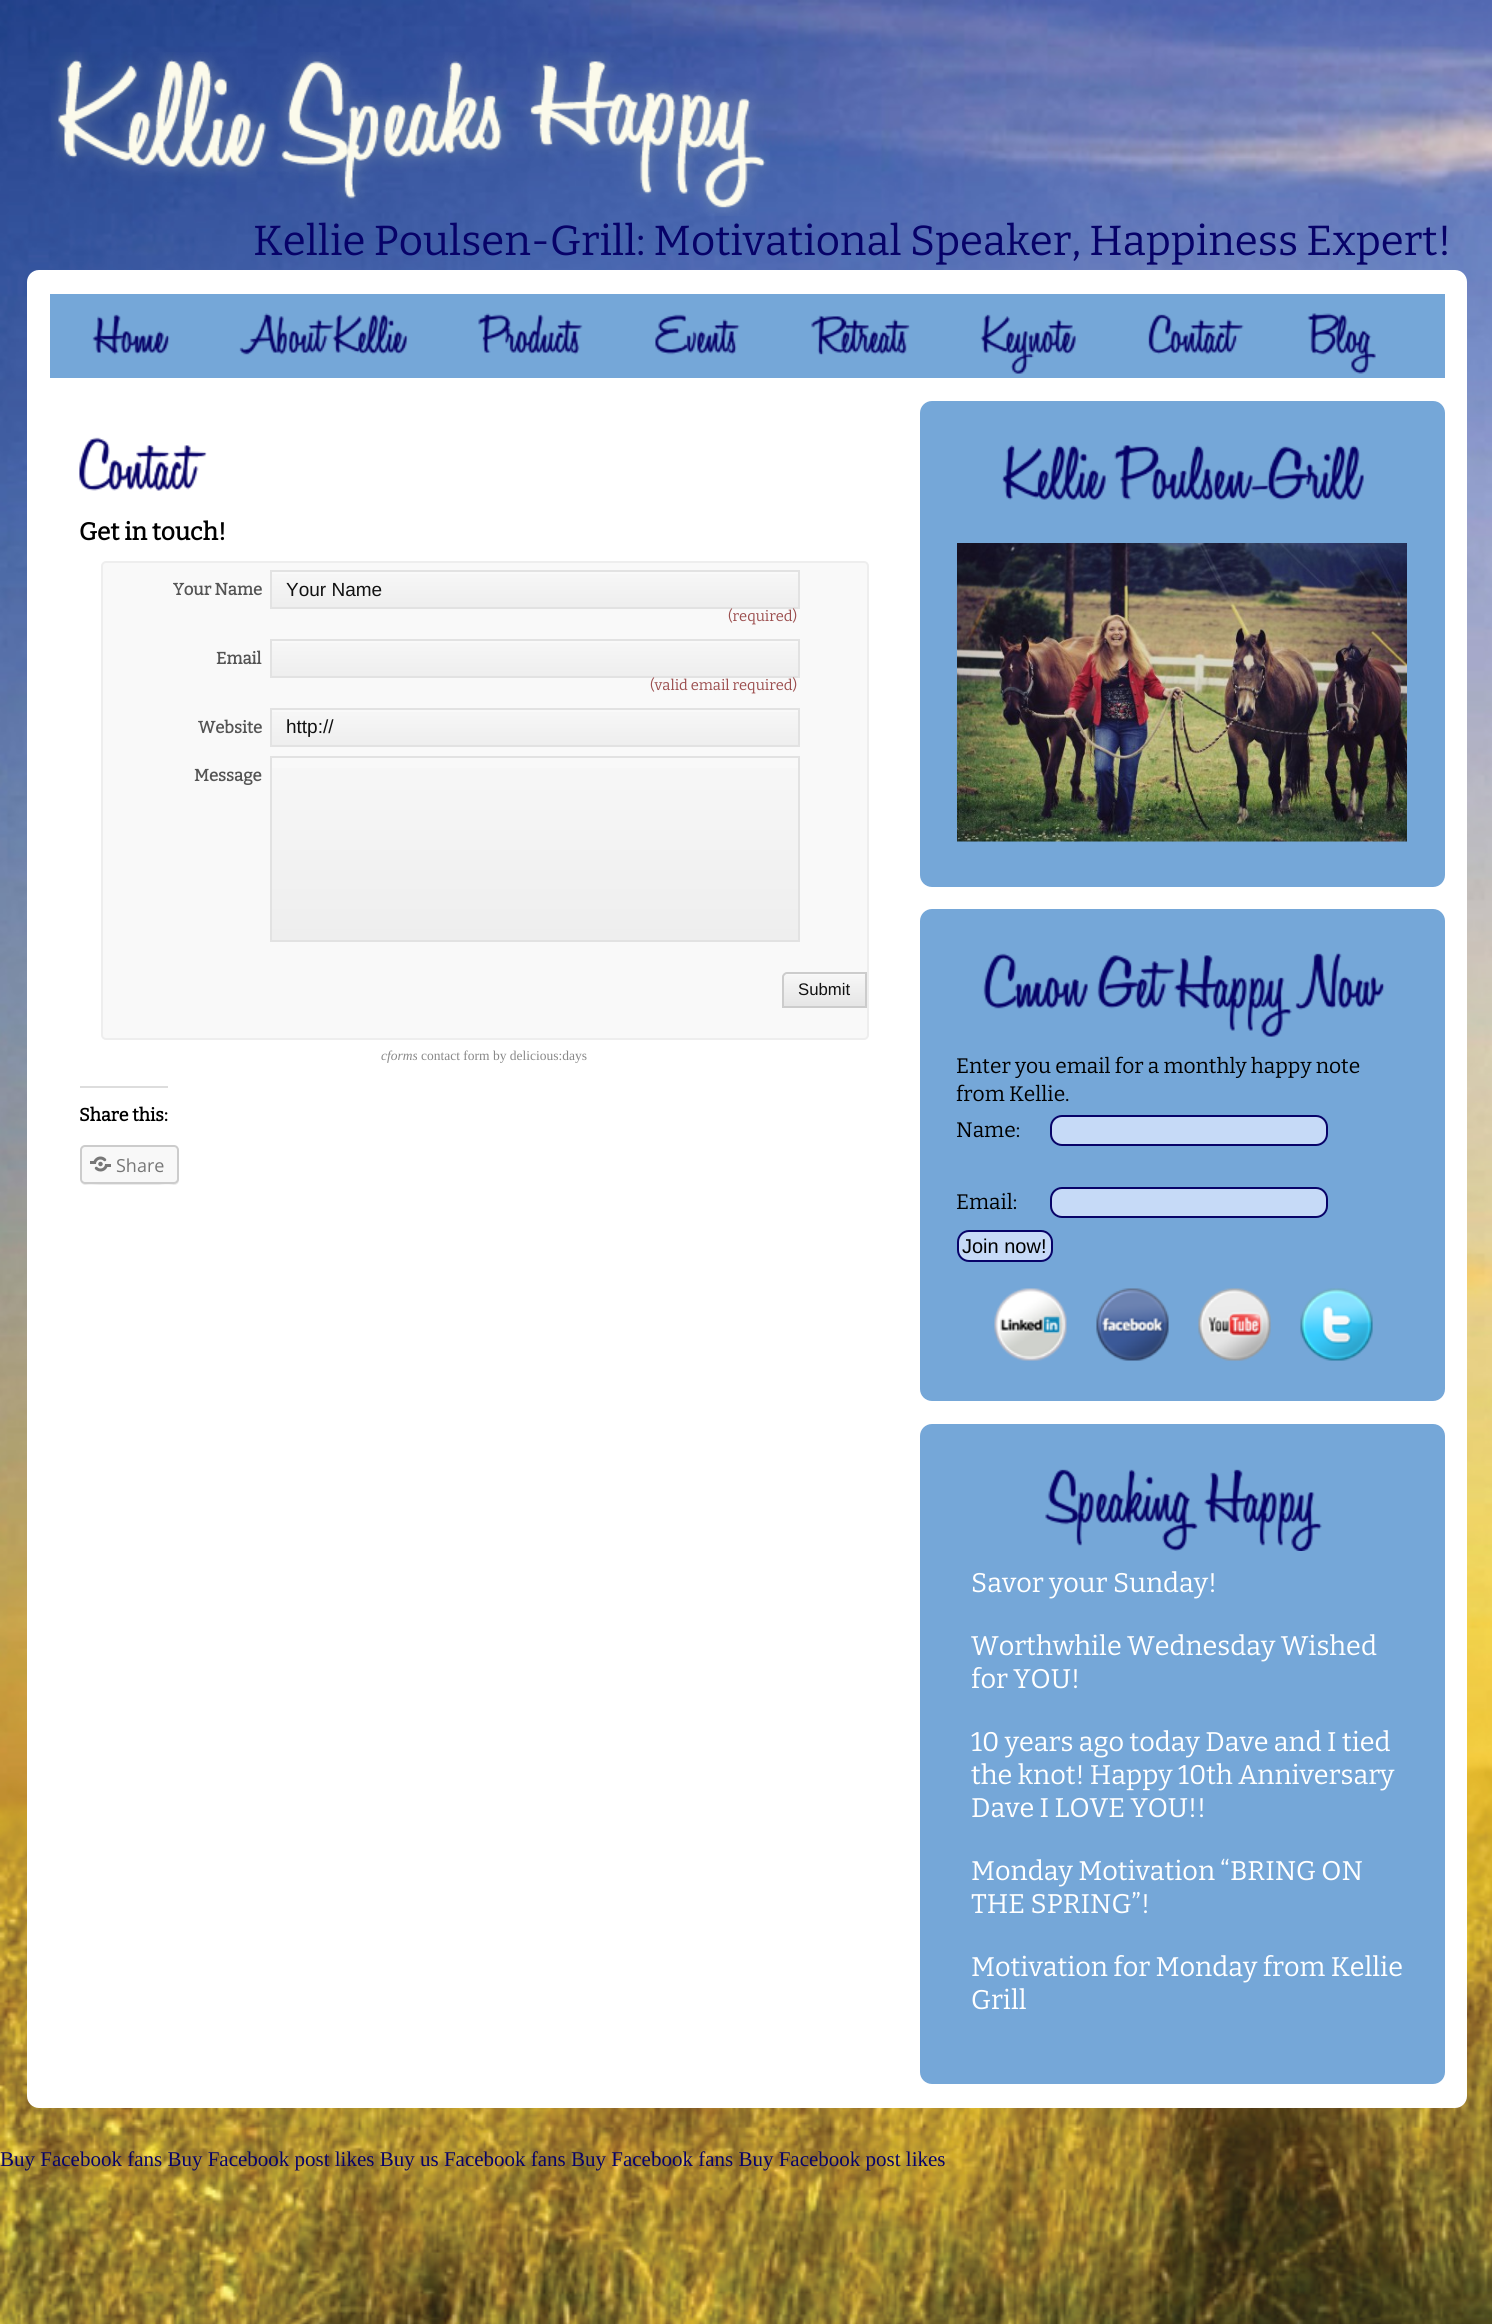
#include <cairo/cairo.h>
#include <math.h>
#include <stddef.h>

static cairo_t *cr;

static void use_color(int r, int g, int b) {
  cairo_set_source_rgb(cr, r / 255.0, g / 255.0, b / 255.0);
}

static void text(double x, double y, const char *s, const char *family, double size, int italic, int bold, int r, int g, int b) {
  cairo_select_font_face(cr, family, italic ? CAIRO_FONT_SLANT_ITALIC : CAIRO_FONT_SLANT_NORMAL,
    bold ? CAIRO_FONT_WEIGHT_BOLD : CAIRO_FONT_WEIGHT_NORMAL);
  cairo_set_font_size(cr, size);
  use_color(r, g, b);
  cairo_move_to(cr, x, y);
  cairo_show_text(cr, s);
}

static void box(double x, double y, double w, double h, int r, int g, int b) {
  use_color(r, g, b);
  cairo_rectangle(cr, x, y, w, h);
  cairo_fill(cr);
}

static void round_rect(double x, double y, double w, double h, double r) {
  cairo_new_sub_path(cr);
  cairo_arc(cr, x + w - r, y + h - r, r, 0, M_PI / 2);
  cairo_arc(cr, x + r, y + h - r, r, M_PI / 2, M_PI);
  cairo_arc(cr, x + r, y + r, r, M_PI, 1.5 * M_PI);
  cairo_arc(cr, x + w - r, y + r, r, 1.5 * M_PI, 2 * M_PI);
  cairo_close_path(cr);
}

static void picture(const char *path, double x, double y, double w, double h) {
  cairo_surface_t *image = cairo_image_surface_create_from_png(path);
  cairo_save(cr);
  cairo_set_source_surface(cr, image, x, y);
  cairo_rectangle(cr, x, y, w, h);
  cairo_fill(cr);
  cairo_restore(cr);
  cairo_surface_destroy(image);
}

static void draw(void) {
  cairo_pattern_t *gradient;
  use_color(255, 255, 255);
  cairo_paint(cr);
  picture("img_01.png", 0, 0, 1492, 2324);
  picture("img_02.png", 51, 52, 719, 164);
  use_color(255, 255, 255);
  round_rect(27, 270, 1440, 1838, 12);
  cairo_fill(cr);
  box(50, 294, 1395, 84, 117, 167, 216);
  picture("img_03.png", 92, 314, 78, 41);
  picture("img_04.png", 239, 313, 95, 42);
  picture("img_05.png", 332, 314, 76, 41);
  picture("img_06.png", 478, 313, 105, 42);
  picture("img_07.png", 655, 314, 85, 41);
  picture("img_08.png", 811, 315, 99, 40);
  picture("img_09.png", 980, 314, 96, 60);
  picture("img_10.png", 1148, 314, 96, 41);
  picture("img_11.png", 1307, 313, 69, 61);
  picture("img_12.png", 79, 437, 128, 54);
  use_color(249, 249, 249);
  round_rect(102, 562, 766, 477, 4);
  cairo_fill_preserve(cr);
  use_color(238, 238, 238);
  cairo_stroke(cr);
  gradient = cairo_pattern_create_linear(535, 572, 535, 608);
  cairo_pattern_add_color_stop_rgba(gradient, 0, 0.969, 0.969, 0.969, 1);
  cairo_pattern_add_color_stop_rgba(gradient, 1, 0.933, 0.933, 0.933, 1);
  cairo_set_source(cr, gradient);
  cairo_pattern_destroy(gradient);
  cairo_rectangle(cr, 272, 574, 526, 33);
  cairo_fill(cr);
  cairo_rectangle(cr, 271, 571, 528, 37);
  use_color(226, 226, 226);
  cairo_stroke(cr);
  gradient = cairo_pattern_create_linear(535, 641, 535, 677);
  cairo_pattern_add_color_stop_rgba(gradient, 0, 0.969, 0.969, 0.969, 1);
  cairo_pattern_add_color_stop_rgba(gradient, 1, 0.933, 0.933, 0.933, 1);
  cairo_set_source(cr, gradient);
  cairo_pattern_destroy(gradient);
  cairo_rectangle(cr, 272, 643, 526, 33);
  cairo_fill(cr);
  cairo_rectangle(cr, 271, 640, 528, 37);
  use_color(226, 226, 226);
  cairo_stroke(cr);
  gradient = cairo_pattern_create_linear(535, 710, 535, 746);
  cairo_pattern_add_color_stop_rgba(gradient, 0, 0.969, 0.969, 0.969, 1);
  cairo_pattern_add_color_stop_rgba(gradient, 1, 0.933, 0.933, 0.933, 1);
  cairo_set_source(cr, gradient);
  cairo_pattern_destroy(gradient);
  cairo_rectangle(cr, 272, 712, 526, 33);
  cairo_fill(cr);
  cairo_rectangle(cr, 271, 709, 528, 37);
  use_color(226, 226, 226);
  cairo_stroke(cr);
  gradient = cairo_pattern_create_linear(535, 758, 535, 941);
  cairo_pattern_add_color_stop_rgba(gradient, 0, 0.969, 0.969, 0.969, 1);
  cairo_pattern_add_color_stop_rgba(gradient, 1, 0.933, 0.933, 0.933, 1);
  cairo_set_source(cr, gradient);
  cairo_pattern_destroy(gradient);
  cairo_rectangle(cr, 272, 768, 526, 172);
  cairo_fill(cr);
  cairo_rectangle(cr, 271, 757, 528, 184);
  use_color(226, 226, 226);
  cairo_stroke(cr);
  gradient = cairo_pattern_create_linear(824, 974, 824, 1007);
  cairo_pattern_add_color_stop_rgba(gradient, 0.01, 0.969, 0.969, 0.969, 1);
  cairo_pattern_add_color_stop_rgba(gradient, 1, 0.898, 0.898, 0.898, 1);
  cairo_set_source(cr, gradient);
  cairo_pattern_destroy(gradient);
  cairo_rectangle(cr, 782, 975, 83, 31);
  cairo_fill(cr);
  cairo_new_path(cr);
  cairo_move_to(cr, 787, 973);
  cairo_line_to(cr, 866, 973);
  cairo_line_to(cr, 866, 1007);
  cairo_line_to(cr, 783, 1007);
  cairo_line_to(cr, 783, 977);
  cairo_curve_to(cr, 783, 975, 785, 973, 787, 973);
  cairo_close_path(cr);
  use_color(204, 204, 204);
  cairo_stroke(cr);
  box(80, 1086, 88, 2, 221, 221, 221);
  use_color(235, 235, 235);
  cairo_new_path(cr);
  cairo_move_to(cr, 80, 1181);
  cairo_curve_to(cr, 81, 1183, 83, 1185, 85, 1185);
  cairo_line_to(cr, 174, 1185);
  cairo_curve_to(cr, 177, 1185, 179, 1183, 179, 1180);
  cairo_line_to(cr, 179, 1151);
  cairo_line_to(cr, 178, 1149);
  cairo_line_to(cr, 178, 1180);
  cairo_curve_to(cr, 177, 1187, 160, 1184, 159, 1184);
  cairo_line_to(cr, 99, 1184);
  cairo_curve_to(cr, 96, 1184, 83, 1186, 80, 1181);
  cairo_close_path(cr);
  cairo_fill(cr);
  use_color(248, 248, 248);
  round_rect(81, 1146, 97, 37, 4);
  cairo_fill_preserve(cr);
  use_color(204, 204, 204);
  cairo_stroke(cr);
  picture("img_13.png", 90, 1156, 21, 16);
  use_color(117, 167, 216);
  round_rect(920, 401, 525, 486, 12);
  cairo_fill(cr);
  picture("img_14.png", 1002, 445, 104, 55);
  picture("img_15.png", 1114, 445, 250, 55);
  picture("img_16.png", 957, 543, 450, 299);
  round_rect(920, 909, 525, 492, 12);
  cairo_fill(cr);
  picture("img_17.png", 983, 953, 105, 56);
  picture("img_18.png", 1097, 955, 78, 54);
  picture("img_19.png", 1174, 955, 118, 82);
  picture("img_20.png", 1295, 952, 90, 58);
  use_color(198, 218, 247);
  round_rect(1051, 1116, 276, 29, 11);
  cairo_fill_preserve(cr);
  use_color(7, 2, 104);
  cairo_stroke(cr);
  use_color(198, 218, 247);
  round_rect(1051, 1188, 276, 29, 11);
  cairo_fill_preserve(cr);
  use_color(7, 2, 104);
  cairo_stroke(cr);
  use_color(198, 218, 247);
  round_rect(958, 1231, 94, 30, 11);
  cairo_fill_preserve(cr);
  use_color(7, 2, 104);
  cairo_stroke(cr);
  picture("img_21.png", 994, 1288, 73, 73);
  picture("img_22.png", 1096, 1288, 73, 73);
  picture("img_23.png", 1198, 1288, 73, 73);
  picture("img_24.png", 1300, 1288, 73, 73);
  use_color(117, 167, 216);
  round_rect(920, 1424, 525, 660, 12);
  cairo_fill(cr);
  picture("img_25.png", 1045, 1469, 153, 82);
  picture("img_26.png", 1204, 1469, 118, 82);
  text(253, 255, "Kellie Poulsen-Grill: Motivational Speaker, Happiness Expert!", "Bitter Thin", 42, 0, 0, 7, 2, 104);
  text(79, 540, "Get in touch!", "Bitter", 24.5, 0, 1, 0, 0, 0);
  text(173, 595, "Your Name", "Bitter", 16.75, 0, 1, 85, 85, 85);
  text(286, 596, "Your Name", "Liberation Sans", 19, 0, 0, 17, 17, 17);
  text(728, 621, "(required)", "Bitter Thin", 14.75, 0, 0, 155, 77, 77);
  text(216, 664, "Email", "Bitter", 16.75, 0, 1, 85, 85, 85);
  text(650, 690, "(valid email required)", "Bitter Thin", 14.75, 0, 0, 155, 77, 77);
  text(198, 733, "Website", "Bitter", 16.75, 0, 1, 85, 85, 85);
  text(286, 733, "http://", "Liberation Sans", 19, 0, 0, 17, 17, 17);
  text(194, 781, "Message", "Bitter", 16.75, 0, 1, 85, 85, 85);
  text(798, 995, "Submit", "Liberation Sans", 16.75, 0, 0, 17, 17, 17);
  text(381, 1060, "cforms", "Liberation Serif", 13.5, 1, 0, 136, 136, 136);
  text(421, 1060, "contact form by delicious:days", "Liberation Serif", 13.5, 0, 0, 136, 136, 136);
  text(79, 1121, "Share this:", "Bitter", 18, 0, 1, 0, 0, 0);
  text(116, 1172, "Share", "Open Sans", 18, 0, 0, 119, 119, 119);
  text(956, 1073, "Enter you email for a monthly happy note", "Bitter Thin", 21, 0, 0, 0, 0, 0);
  text(956, 1101, "from Kellie.", "Bitter Thin", 21, 0, 0, 0, 0, 0);
  text(956, 1137, "Name:", "Bitter Thin", 21, 0, 0, 0, 0, 0);
  text(956, 1209, "Email:", "Bitter Thin", 21, 0, 0, 0, 0, 0);
  text(962, 1253, "Join now!", "Liberation Sans", 20, 0, 0, 0, 0, 0);
  text(971, 1592, "Savor your Sunday!", "Bitter Thin", 27, 0, 0, 255, 255, 255);
  text(971, 1655, "Worthwhile Wednesday Wished", "Bitter Thin", 27, 0, 0, 255, 255, 255);
  text(971, 1688, "for YOU!", "Bitter Thin", 27, 0, 0, 255, 255, 255);
  text(971, 1751, "10 years ago today Dave and I tied", "Bitter Thin", 27, 0, 0, 255, 255, 255);
  text(971, 1784, "the knot! Happy 10th Anniversary", "Bitter Thin", 27, 0, 0, 255, 255, 255);
  text(971, 1817, "Dave I LOVE YOU!!", "Bitter Thin", 27, 0, 0, 255, 255, 255);
  text(971, 1880, "Monday Motivation “BRING ON", "Bitter Thin", 27, 0, 0, 255, 255, 255);
  text(971, 1913, "THE SPRING”!", "Bitter Thin", 27, 0, 0, 255, 255, 255);
  text(971, 1976, "Motivation for Monday from Kellie", "Bitter Thin", 27, 0, 0, 255, 255, 255);
  text(971, 2009, "Grill", "Bitter Thin", 27, 0, 0, 255, 255, 255);
  text(0, 2166, "Buy Facebook fans Buy Facebook post likes Buy us Facebook fans Buy Facebook fans Buy Facebook post likes", "Liberation Serif", 21, 0, 0, 7, 2, 104);
}

int main(void) {
  cairo_surface_t *surface = cairo_image_surface_create(CAIRO_FORMAT_RGB24, 1492, 2324);
  cr = cairo_create(surface);
  cairo_font_options_t *options = cairo_font_options_create();
  cairo_font_options_set_hint_metrics(options, CAIRO_HINT_METRICS_OFF);
  cairo_font_options_set_hint_style(options, CAIRO_HINT_STYLE_NONE);
  cairo_set_font_options(cr, options);
  cairo_set_miter_limit(cr, 4);
  draw();
  cairo_surface_write_to_png(surface, "out.png");
  cairo_font_options_destroy(options);
  cairo_destroy(cr);
  cairo_surface_destroy(surface);
  return 0;
}
